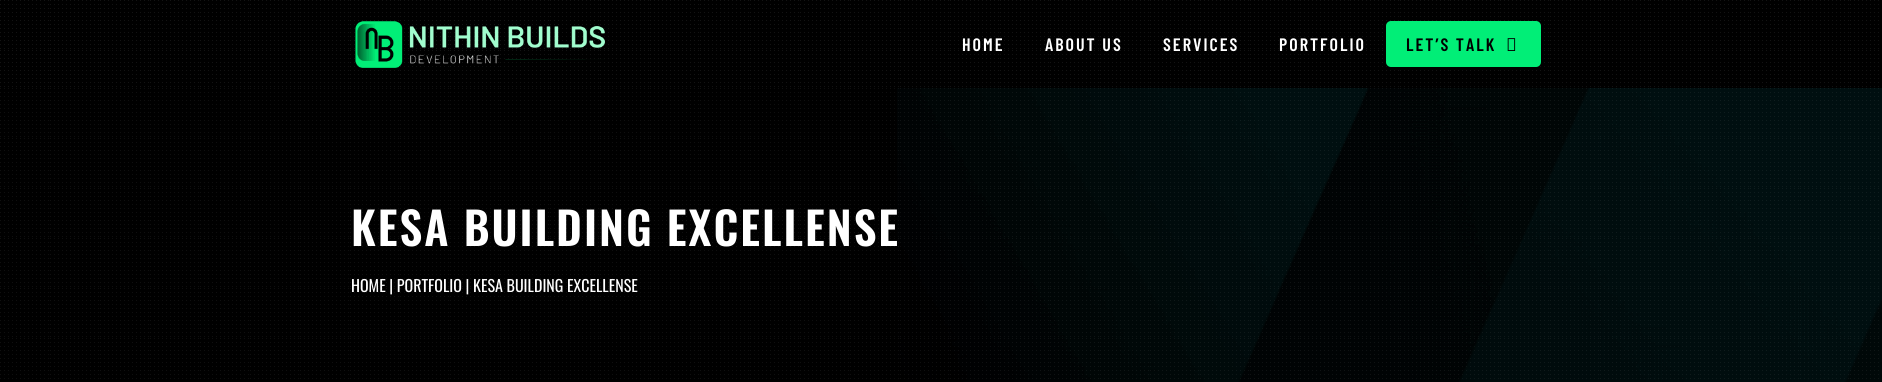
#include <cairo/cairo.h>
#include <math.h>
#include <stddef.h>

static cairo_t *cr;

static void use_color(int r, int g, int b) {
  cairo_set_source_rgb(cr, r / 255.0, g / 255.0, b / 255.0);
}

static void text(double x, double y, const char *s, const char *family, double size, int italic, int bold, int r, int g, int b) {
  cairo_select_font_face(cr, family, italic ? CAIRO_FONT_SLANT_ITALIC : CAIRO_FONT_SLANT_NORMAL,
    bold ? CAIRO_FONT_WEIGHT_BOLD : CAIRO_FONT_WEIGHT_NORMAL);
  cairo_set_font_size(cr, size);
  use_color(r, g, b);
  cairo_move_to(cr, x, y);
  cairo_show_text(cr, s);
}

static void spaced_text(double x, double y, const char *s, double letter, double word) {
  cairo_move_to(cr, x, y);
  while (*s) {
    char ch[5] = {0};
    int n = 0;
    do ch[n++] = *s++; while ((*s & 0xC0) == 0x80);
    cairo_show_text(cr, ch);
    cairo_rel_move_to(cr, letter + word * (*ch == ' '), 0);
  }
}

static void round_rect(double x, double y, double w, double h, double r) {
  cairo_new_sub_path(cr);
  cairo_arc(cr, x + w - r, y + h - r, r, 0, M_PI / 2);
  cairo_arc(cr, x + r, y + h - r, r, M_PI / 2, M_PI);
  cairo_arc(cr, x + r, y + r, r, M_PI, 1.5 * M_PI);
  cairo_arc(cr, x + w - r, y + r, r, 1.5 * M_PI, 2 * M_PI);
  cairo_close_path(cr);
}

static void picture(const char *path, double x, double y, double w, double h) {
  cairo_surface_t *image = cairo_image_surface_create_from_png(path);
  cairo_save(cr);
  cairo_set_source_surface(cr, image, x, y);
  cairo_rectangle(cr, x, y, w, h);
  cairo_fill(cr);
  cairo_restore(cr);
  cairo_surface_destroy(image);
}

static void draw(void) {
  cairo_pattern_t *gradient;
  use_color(255, 255, 255);
  cairo_paint(cr);
  gradient = cairo_pattern_create_linear(941, 0, 941, 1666);
  cairo_pattern_add_color_stop_rgba(gradient, 0.4, 0, 0, 0, 1);
  cairo_pattern_add_color_stop_rgba(gradient, 1, 0.024, 0.157, 0.098, 1);
  cairo_set_source(cr, gradient);
  cairo_pattern_destroy(gradient);
  cairo_rectangle(cr, 0, 0, 1882, 382);
  cairo_fill(cr);
  picture("img_01.png", 0, 0, 1879, 87);
  picture("img_02.png", 355, 21, 250, 47);
  use_color(1, 238, 119);
  round_rect(1386, 21, 155, 46, 5);
  cairo_fill(cr);
  picture("img_03.png", 1507, 38, 9, 13);
  picture("img_04.png", 897, 88, 985, 294);
  picture("img_05.png", 0, 88, 1879, 291);
  cairo_select_font_face(cr, "Barlow Condensed SemiBold", CAIRO_FONT_SLANT_NORMAL, CAIRO_FONT_WEIGHT_NORMAL);
  cairo_set_font_size(cr, 18);
  use_color(255, 255, 255);
  spaced_text(962, 51, "HOME", 2, 0);
  spaced_text(1045, 51, "ABOUT US", 2, 0);
  spaced_text(1163, 51, "SERVICES", 2, 0);
  spaced_text(1279, 51, "PORTFOLIO", 2, 0);
  use_color(0, 0, 0);
  spaced_text(1406, 51, "LET’S TALK", 2, 0);
  cairo_select_font_face(cr, "Oswald SemiBold", CAIRO_FONT_SLANT_NORMAL, CAIRO_FONT_WEIGHT_NORMAL);
  cairo_set_font_size(cr, 45);
  use_color(255, 255, 255);
  spaced_text(351, 246, "KESA BUILDING EXCELLENSE", 2, 0);
  text(351, 292, "HOME | PORTFOLIO | KESA BUILDING EXCELLENSE", "Oswald", 16, 0, 0, 255, 255, 255);
}

int main(void) {
  cairo_surface_t *surface = cairo_image_surface_create(CAIRO_FORMAT_RGB24, 1882, 382);
  cr = cairo_create(surface);
  cairo_font_options_t *options = cairo_font_options_create();
  cairo_font_options_set_hint_metrics(options, CAIRO_HINT_METRICS_OFF);
  cairo_font_options_set_hint_style(options, CAIRO_HINT_STYLE_NONE);
  cairo_set_font_options(cr, options);
  cairo_set_miter_limit(cr, 4);
  draw();
  cairo_surface_write_to_png(surface, "out.png");
  cairo_font_options_destroy(options);
  cairo_destroy(cr);
  cairo_surface_destroy(surface);
  return 0;
}
